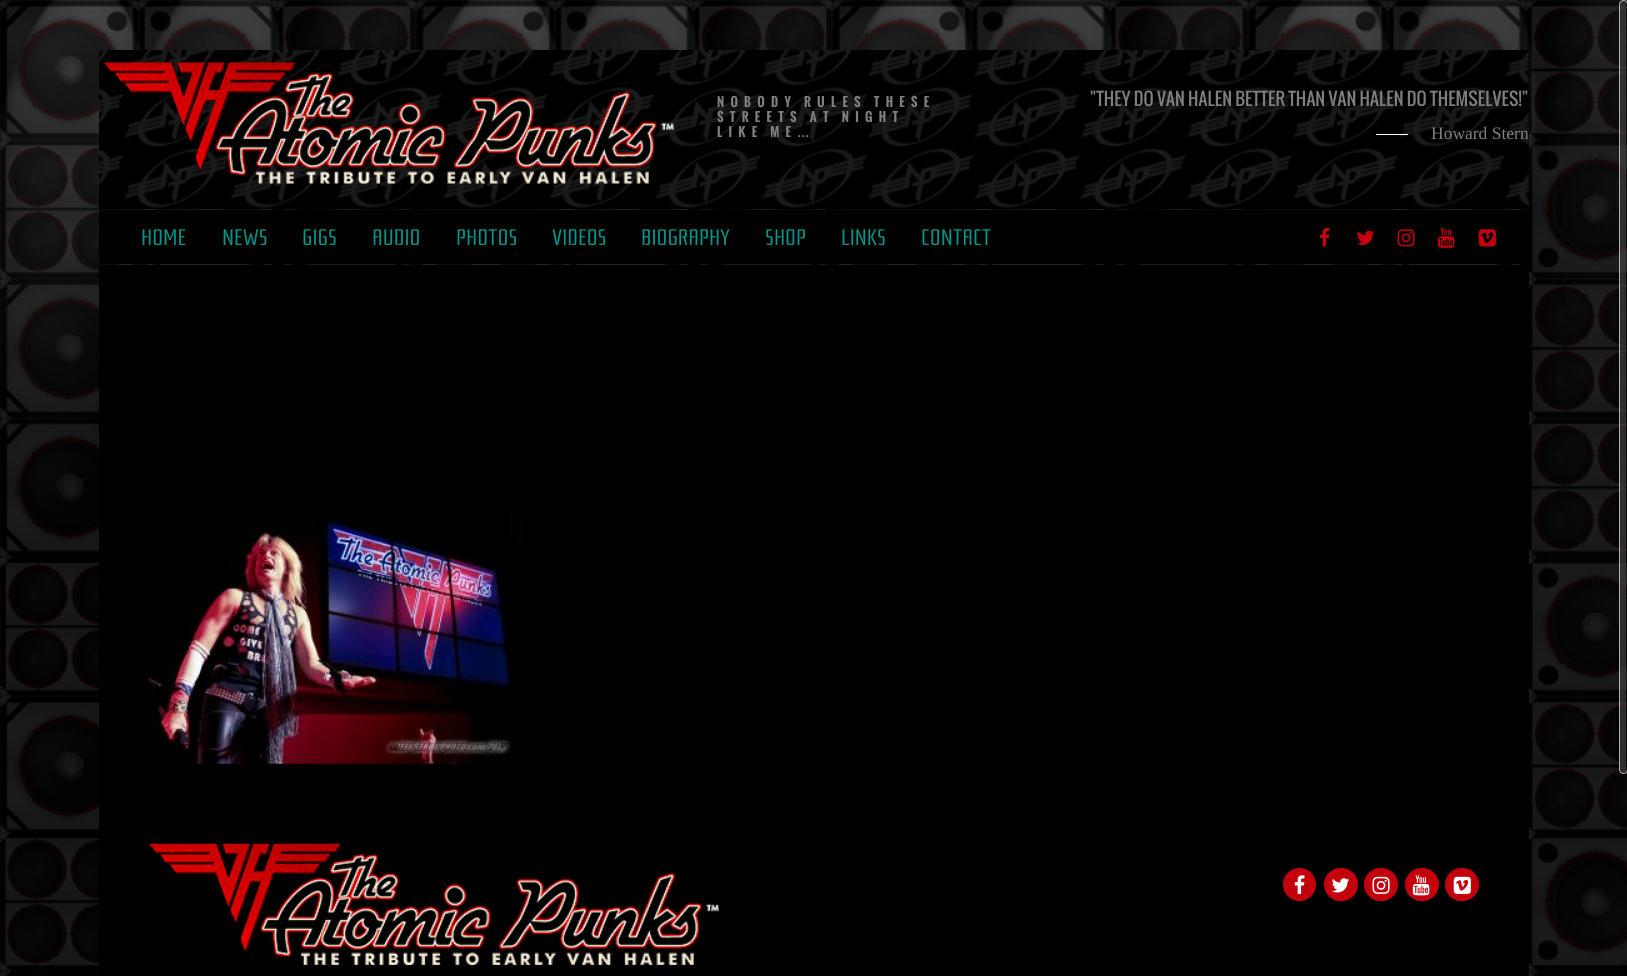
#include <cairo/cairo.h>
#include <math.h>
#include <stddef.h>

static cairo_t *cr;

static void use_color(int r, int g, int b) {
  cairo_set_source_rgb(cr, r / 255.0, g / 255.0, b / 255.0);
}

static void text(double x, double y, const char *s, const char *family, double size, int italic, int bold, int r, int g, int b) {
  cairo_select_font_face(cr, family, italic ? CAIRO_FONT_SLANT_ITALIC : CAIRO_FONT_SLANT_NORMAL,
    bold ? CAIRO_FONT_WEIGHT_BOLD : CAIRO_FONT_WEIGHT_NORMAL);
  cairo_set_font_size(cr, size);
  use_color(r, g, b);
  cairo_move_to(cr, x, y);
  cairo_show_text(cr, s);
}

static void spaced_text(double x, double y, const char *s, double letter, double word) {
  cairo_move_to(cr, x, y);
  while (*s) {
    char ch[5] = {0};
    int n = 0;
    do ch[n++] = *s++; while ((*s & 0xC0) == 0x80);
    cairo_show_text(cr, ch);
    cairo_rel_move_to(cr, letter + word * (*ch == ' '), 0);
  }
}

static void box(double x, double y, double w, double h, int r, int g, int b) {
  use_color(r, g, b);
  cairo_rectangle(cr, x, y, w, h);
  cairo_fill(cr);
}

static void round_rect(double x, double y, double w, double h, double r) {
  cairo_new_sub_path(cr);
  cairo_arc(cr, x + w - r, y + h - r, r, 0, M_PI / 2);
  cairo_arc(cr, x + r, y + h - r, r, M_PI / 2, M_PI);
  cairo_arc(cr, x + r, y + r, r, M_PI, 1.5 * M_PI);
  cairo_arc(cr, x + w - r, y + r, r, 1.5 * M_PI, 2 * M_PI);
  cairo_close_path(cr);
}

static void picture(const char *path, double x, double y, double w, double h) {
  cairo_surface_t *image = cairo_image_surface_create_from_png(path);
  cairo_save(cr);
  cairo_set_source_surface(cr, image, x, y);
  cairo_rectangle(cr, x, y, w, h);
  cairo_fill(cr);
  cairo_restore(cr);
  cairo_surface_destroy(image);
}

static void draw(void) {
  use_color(255, 255, 255);
  cairo_paint(cr);
  picture("img_01.png", 0, 0, 1627, 976);
  box(99, 50, 1430, 159, 0, 0, 0);
  picture("img_02.png", 98, 50, 1431, 158);
  picture("img_03.png", 104, 62, 570, 122);
  box(1376, 134, 32, 1, 255, 255, 255);
  box(99, 210, 1429, 54, 0, 0, 0);
  picture("img_04.png", 1319, 227, 11, 20);
  picture("img_05.png", 1357, 230, 18, 15);
  picture("img_06.png", 1397, 229, 18, 18);
  picture("img_07.png", 1437, 227, 18, 21);
  picture("img_08.png", 1478, 229, 18, 18);
  box(99, 265, 1430, 711, 0, 0, 0);
  picture("img_09.png", 148, 511, 376, 253);
  picture("img_10.png", 149, 843, 570, 122);
  use_color(197, 0, 13);
  cairo_arc(cr, 1299.5, 884.5, 16.5, 0, 2 * M_PI);
  cairo_fill(cr);
  picture("img_11.png", 1294, 875, 11, 19);
  round_rect(1324, 868, 34, 33, 16.5);
  cairo_fill(cr);
  picture("img_12.png", 1331, 878, 19, 15);
  round_rect(1364, 868, 34, 33, 16.5);
  cairo_fill(cr);
  picture("img_13.png", 1372, 876, 18, 18);
  round_rect(1405, 868, 34, 33, 16.5);
  cairo_fill(cr);
  picture("img_14.png", 1412, 875, 18, 21);
  round_rect(1445, 868, 34, 33, 16.5);
  cairo_fill(cr);
  picture("img_15.png", 1453, 876, 18, 18);
  cairo_set_source_rgba(cr, 0.259, 0.259, 0.259, 0.67);
  round_rect(1620, 1, 6, 772, 3);
  cairo_fill(cr);
  round_rect(1619.5, 0.5, 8, 773, 4);
  cairo_set_source_rgba(cr, 1, 1, 1, 0.67);
  cairo_set_line_width(cr, 1);
  cairo_stroke(cr);
  cairo_select_font_face(cr, "Oswald", CAIRO_FONT_SLANT_NORMAL, CAIRO_FONT_WEIGHT_BOLD);
  cairo_set_font_size(cr, 12.5);
  use_color(127, 127, 127);
  spaced_text(717, 107, "NOBODY RULES THESE", 6.25, -1);
  spaced_text(717, 122, "STREETS AT NIGHT", 6.25, -1);
  spaced_text(717, 137, "LIKE ME", 6.25, -1);
  cairo_select_font_face(cr, "Liberation Sans", CAIRO_FONT_SLANT_NORMAL, CAIRO_FONT_WEIGHT_BOLD);
  spaced_text(797, 137, "…", 6.25, 0);
  cairo_select_font_face(cr, "Oswald", CAIRO_FONT_SLANT_NORMAL, CAIRO_FONT_WEIGHT_NORMAL);
  cairo_set_font_size(cr, 17.5);
  spaced_text(1090, 106, "\"THEY DO VAN HALEN BETTER THAN VAN HALEN DO THEMSELVES!\"", 0.12, 0);
  text(1431, 139, "Howard Stern", "Liberation Serif", 17.5, 0, 0, 127, 127, 127);
  text(141, 245, "HOME", "Rationale", 22.5, 0, 0, 0, 150, 136);
  text(222, 245, "NEWS", "Rationale", 22.5, 0, 0, 0, 150, 136);
  text(302, 245, "GIGS", "Rationale", 22.5, 0, 0, 0, 150, 136);
  text(372, 245, "AUDIO", "Rationale", 22.5, 0, 0, 0, 150, 136);
  text(456, 245, "PHOTOS", "Rationale", 22.5, 0, 0, 0, 150, 136);
  text(552, 245, "VIDEOS", "Rationale", 22.5, 0, 0, 0, 150, 136);
  text(641, 245, "BIOGRAPHY", "Rationale", 22.5, 0, 0, 0, 150, 136);
  text(765, 245, "SHOP", "Rationale", 22.5, 0, 0, 0, 150, 136);
  text(841, 245, "LINKS", "Rationale", 22.5, 0, 0, 0, 150, 136);
  text(921, 245, "CONTACT", "Rationale", 22.5, 0, 0, 0, 150, 136);
}

int main(void) {
  cairo_surface_t *surface = cairo_image_surface_create(CAIRO_FORMAT_RGB24, 1627, 976);
  cr = cairo_create(surface);
  cairo_font_options_t *options = cairo_font_options_create();
  cairo_font_options_set_hint_metrics(options, CAIRO_HINT_METRICS_OFF);
  cairo_font_options_set_hint_style(options, CAIRO_HINT_STYLE_NONE);
  cairo_set_font_options(cr, options);
  cairo_set_miter_limit(cr, 4);
  draw();
  cairo_surface_write_to_png(surface, "out.png");
  cairo_font_options_destroy(options);
  cairo_destroy(cr);
  cairo_surface_destroy(surface);
  return 0;
}
